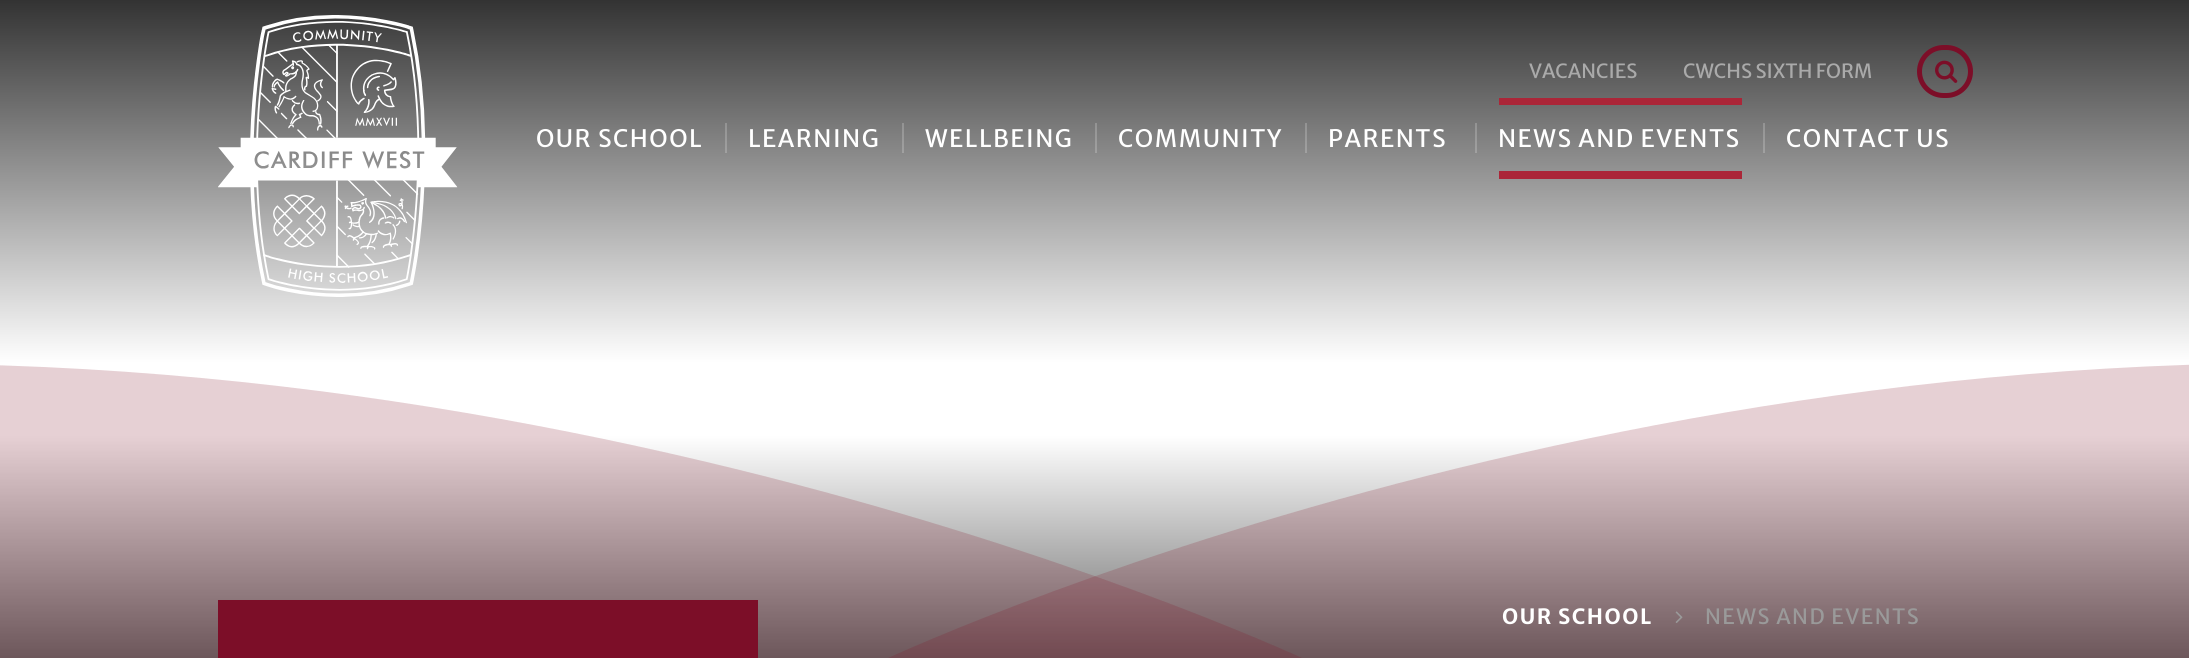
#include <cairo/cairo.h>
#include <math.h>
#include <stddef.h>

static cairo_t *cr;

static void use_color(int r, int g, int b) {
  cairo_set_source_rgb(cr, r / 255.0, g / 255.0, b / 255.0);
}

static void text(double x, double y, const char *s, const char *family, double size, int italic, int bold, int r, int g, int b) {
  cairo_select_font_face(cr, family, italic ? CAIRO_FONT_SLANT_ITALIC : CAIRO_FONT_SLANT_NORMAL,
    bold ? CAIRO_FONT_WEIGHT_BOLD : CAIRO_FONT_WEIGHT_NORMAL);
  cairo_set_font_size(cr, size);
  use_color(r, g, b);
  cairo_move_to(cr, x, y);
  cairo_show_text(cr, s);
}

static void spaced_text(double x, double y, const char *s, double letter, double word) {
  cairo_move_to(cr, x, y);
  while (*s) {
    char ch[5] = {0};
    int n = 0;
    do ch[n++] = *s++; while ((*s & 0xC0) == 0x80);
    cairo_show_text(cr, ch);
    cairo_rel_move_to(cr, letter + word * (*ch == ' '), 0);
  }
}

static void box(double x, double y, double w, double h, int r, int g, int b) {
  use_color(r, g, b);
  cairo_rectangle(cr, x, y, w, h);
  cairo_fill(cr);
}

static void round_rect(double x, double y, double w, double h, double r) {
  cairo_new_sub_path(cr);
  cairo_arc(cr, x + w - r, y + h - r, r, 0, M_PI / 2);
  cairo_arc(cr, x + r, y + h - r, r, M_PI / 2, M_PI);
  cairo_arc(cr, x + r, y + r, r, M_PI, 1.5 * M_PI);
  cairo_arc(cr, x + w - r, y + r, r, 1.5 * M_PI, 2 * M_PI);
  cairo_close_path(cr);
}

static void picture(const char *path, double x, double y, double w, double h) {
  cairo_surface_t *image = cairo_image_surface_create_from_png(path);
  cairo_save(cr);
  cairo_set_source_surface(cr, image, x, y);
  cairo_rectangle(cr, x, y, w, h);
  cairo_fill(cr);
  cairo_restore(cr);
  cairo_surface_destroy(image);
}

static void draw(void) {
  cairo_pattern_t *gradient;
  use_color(255, 255, 255);
  cairo_paint(cr);
  gradient = cairo_pattern_create_linear(1095, 0, 1095, 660);
  cairo_pattern_add_color_stop_rgba(gradient, 0, 0.2, 0.2, 0.2, 1);
  cairo_pattern_add_color_stop_rgba(gradient, 0.55, 1, 1, 1, 1);
  cairo_pattern_add_color_stop_rgba(gradient, 0.66, 1, 1, 1, 1);
  cairo_pattern_add_color_stop_rgba(gradient, 1, 0.4, 0.4, 0.4, 1);
  cairo_set_source(cr, gradient);
  cairo_pattern_destroy(gradient);
  cairo_rectangle(cr, 0, 0, 2189, 658);
  cairo_fill(cr);
  cairo_set_source_rgba(cr, 0.518, 0.082, 0.173, 0.2);
  cairo_new_path(cr);
  cairo_move_to(cr, 1201, 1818);
  cairo_curve_to(cr, 1275, 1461, 1323, 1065, 1313, 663);
  cairo_curve_to(cr, 1313, 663, 505, 279, -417, 381);
  cairo_curve_to(cr, -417, 381, -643, 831, -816, 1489);
  cairo_close_path(cr);
  cairo_fill(cr);
  box(218, 600, 540, 58, 124, 14, 40);
  picture("img_01.png", 218, 15, 240, 282);
  round_rect(1919.5, 47.5, 51, 48, 24);
  cairo_set_line_width(cr, 5);
  cairo_stroke(cr);
  picture("img_02.png", 1935, 60, 23, 23);
  box(1499, 98, 243, 7, 171, 38, 56);
  box(1499, 171, 243, 8, 171, 38, 56);
  gradient = cairo_pattern_create_linear(1095, 0, 1095, 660);
  cairo_pattern_add_color_stop_rgba(gradient, 0, 0.361, 0.361, 0.361, 1);
  cairo_pattern_add_color_stop_rgba(gradient, 0.55, 1, 1, 1, 1);
  cairo_pattern_add_color_stop_rgba(gradient, 0.66, 1, 1, 1, 1);
  cairo_pattern_add_color_stop_rgba(gradient, 1, 0.522, 0.522, 0.522, 1);
  cairo_set_source(cr, gradient);
  cairo_pattern_destroy(gradient);
  cairo_rectangle(cr, 1763, 123, 2, 30);
  cairo_fill(cr);
  cairo_rectangle(cr, 1475, 123, 2, 30);
  cairo_fill(cr);
  cairo_rectangle(cr, 1305, 123, 2, 30);
  cairo_fill(cr);
  cairo_rectangle(cr, 1095, 123, 2, 30);
  cairo_fill(cr);
  cairo_rectangle(cr, 902, 123, 2, 30);
  cairo_fill(cr);
  cairo_rectangle(cr, 725, 123, 2, 30);
  cairo_fill(cr);
  cairo_set_source_rgba(cr, 0.518, 0.082, 0.173, 0.2);
  cairo_new_path(cr);
  cairo_move_to(cr, 990, 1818);
  cairo_curve_to(cr, 916, 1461, 867, 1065, 877, 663);
  cairo_curve_to(cr, 877, 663, 1686, 279, 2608, 380);
  cairo_curve_to(cr, 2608, 380, 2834, 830, 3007, 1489);
  cairo_close_path(cr);
  cairo_fill(cr);
  picture("img_03.png", 1675, 611, 8, 12);
  text(1529, 78, "VACANCIES", "Merriweather Sans", 19.5, 0, 0, 170, 170, 170);
  text(1683, 78, "CWCHS SIXTH FORM", "Merriweather Sans", 19.5, 0, 0, 170, 170, 170);
  cairo_set_font_size(cr, 24);
  use_color(255, 255, 255);
  spaced_text(536, 147, "OUR SCHOOL", 1.5, 0);
  spaced_text(748, 147, "LEARNING", 1.5, 0);
  spaced_text(925, 147, "WELLBEING", 1.5, 0);
  spaced_text(1118, 147, "COMMUNITY", 1.5, 0);
  spaced_text(1328, 147, "PARENTS", 1.5, 0);
  spaced_text(1498, 147, "NEWS AND EVENTS", 1.5, 0);
  spaced_text(1786, 147, "CONTACT US", 1.5, 0);
  cairo_select_font_face(cr, "Merriweather Sans", CAIRO_FONT_SLANT_NORMAL, CAIRO_FONT_WEIGHT_BOLD);
  cairo_set_font_size(cr, 21);
  spaced_text(1502, 624, "OUR SCHOOL", 1.5, 0);
  cairo_select_font_face(cr, "Merriweather Sans", CAIRO_FONT_SLANT_NORMAL, CAIRO_FONT_WEIGHT_NORMAL);
  use_color(154, 154, 154);
  spaced_text(1705, 624, "NEWS AND EVENTS", 1.5, 0);
}

int main(void) {
  cairo_surface_t *surface = cairo_image_surface_create(CAIRO_FORMAT_RGB24, 2189, 658);
  cr = cairo_create(surface);
  cairo_font_options_t *options = cairo_font_options_create();
  cairo_font_options_set_hint_metrics(options, CAIRO_HINT_METRICS_OFF);
  cairo_font_options_set_hint_style(options, CAIRO_HINT_STYLE_NONE);
  cairo_set_font_options(cr, options);
  cairo_set_miter_limit(cr, 4);
  draw();
  cairo_surface_write_to_png(surface, "out.png");
  cairo_font_options_destroy(options);
  cairo_destroy(cr);
  cairo_surface_destroy(surface);
  return 0;
}
